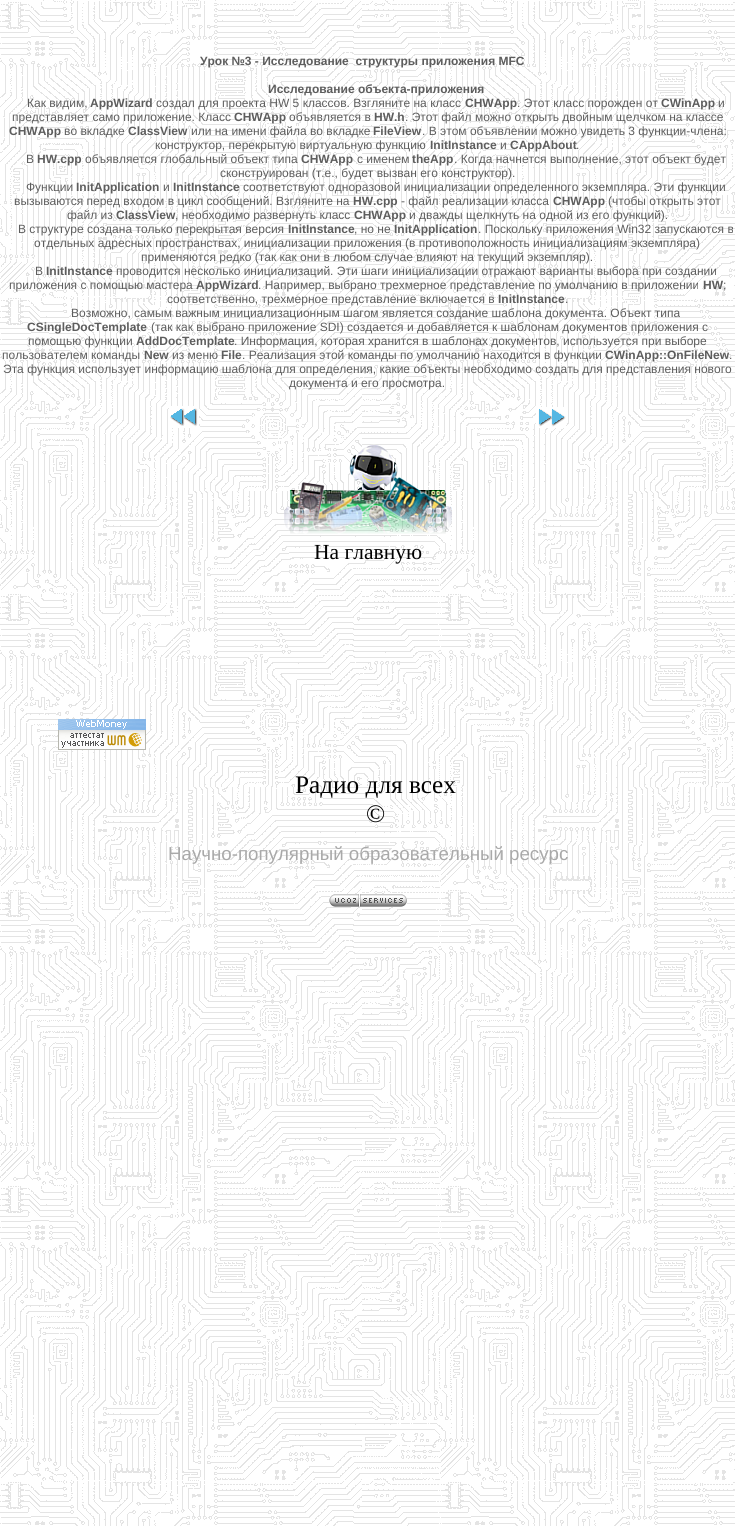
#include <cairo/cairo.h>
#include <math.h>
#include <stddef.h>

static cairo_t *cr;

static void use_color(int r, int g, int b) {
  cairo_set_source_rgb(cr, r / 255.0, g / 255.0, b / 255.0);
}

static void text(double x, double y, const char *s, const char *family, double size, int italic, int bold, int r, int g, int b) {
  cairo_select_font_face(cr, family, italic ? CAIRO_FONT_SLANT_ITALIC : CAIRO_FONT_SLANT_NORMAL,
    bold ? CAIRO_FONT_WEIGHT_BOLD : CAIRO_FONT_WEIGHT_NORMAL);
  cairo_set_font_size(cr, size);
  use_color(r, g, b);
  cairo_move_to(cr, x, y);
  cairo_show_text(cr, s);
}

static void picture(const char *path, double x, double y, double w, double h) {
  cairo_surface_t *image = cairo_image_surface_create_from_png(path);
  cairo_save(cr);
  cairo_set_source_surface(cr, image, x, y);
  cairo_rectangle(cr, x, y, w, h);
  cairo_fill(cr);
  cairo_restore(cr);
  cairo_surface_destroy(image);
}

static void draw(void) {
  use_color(255, 255, 255);
  cairo_paint(cr);
  picture("img_01.png", 0, 0, 735, 1526);
  picture("img_02.png", 169, 406, 30, 22);
  picture("img_03.png", 536, 407, 30, 21);
  picture("img_04.png", 284, 444, 168, 90);
  picture("img_05.png", 58, 719, 88, 31);
  picture("img_06.png", 329, 894, 78, 13);
  text(200, 65, "Урок №3 - Исследование  структуры приложения MFC", "Liberation Sans", 12, 0, 1, 93, 93, 93);
  text(268, 93, "Исследование объекта-приложения", "Liberation Sans", 12, 0, 1, 93, 93, 93);
  text(27, 107, "Как видим,", "Liberation Sans", 12, 0, 0, 93, 93, 93);
  text(90, 107, "AppWizard", "Liberation Sans", 12, 0, 1, 93, 93, 93);
  text(156, 107, "создал для проекта HW 5 классов. Взгляните на класс", "Liberation Sans", 12, 0, 0, 93, 93, 93);
  text(465, 107, "CHWApp", "Liberation Sans", 12, 0, 1, 93, 93, 93);
  text(517, 107, ". Этот класс порожден от", "Liberation Sans", 12, 0, 0, 93, 93, 93);
  text(661, 107, "CWinApp", "Liberation Sans", 12, 0, 1, 93, 93, 93);
  text(718, 107, "и", "Liberation Sans", 12, 0, 0, 93, 93, 93);
  text(12, 121, "представляет само приложение. Класс", "Liberation Sans", 12, 0, 0, 93, 93, 93);
  text(234, 121, "CHWApp", "Liberation Sans", 12, 0, 1, 93, 93, 93);
  text(289, 121, "объявляется в", "Liberation Sans", 12, 0, 0, 93, 93, 93);
  text(374, 121, "HW.h", "Liberation Sans", 12, 0, 1, 93, 93, 93);
  text(405, 121, ". Этот файл можно открыть двойным щелчком на классе", "Liberation Sans", 12, 0, 0, 93, 93, 93);
  text(9, 135, "CHWApp", "Liberation Sans", 12, 0, 1, 93, 93, 93);
  text(64, 135, "во вкладке", "Liberation Sans", 12, 0, 0, 93, 93, 93);
  text(128, 135, "ClassView", "Liberation Sans", 12, 0, 1, 93, 93, 93);
  text(191, 135, "или на имени файла во вкладке", "Liberation Sans", 12, 0, 0, 93, 93, 93);
  text(373, 135, "FileView", "Liberation Sans", 12, 0, 1, 93, 93, 93);
  text(422, 135, ". В этом объявлении можно увидеть 3 функции-члена:", "Liberation Sans", 12, 0, 0, 93, 93, 93);
  text(155, 149, "конструктор, перекрытую виртуальную функцию", "Liberation Sans", 12, 0, 0, 93, 93, 93);
  text(430, 149, "InitInstance", "Liberation Sans", 12, 0, 1, 93, 93, 93);
  text(500, 149, "и", "Liberation Sans", 12, 0, 0, 93, 93, 93);
  text(510, 149, "CAppAbout", "Liberation Sans", 12, 0, 1, 93, 93, 93);
  text(576, 149, ".", "Liberation Sans", 12, 0, 0, 93, 93, 93);
  text(26, 163, "В", "Liberation Sans", 12, 0, 0, 93, 93, 93);
  text(37, 163, "HW.cpp", "Liberation Sans", 12, 0, 1, 93, 93, 93);
  text(85, 163, "объявляется глобальный объект типа", "Liberation Sans", 12, 0, 0, 93, 93, 93);
  text(301, 163, "CHWApp", "Liberation Sans", 12, 0, 1, 93, 93, 93);
  text(357, 163, "с именем", "Liberation Sans", 12, 0, 0, 93, 93, 93);
  text(412, 163, "theApp", "Liberation Sans", 12, 0, 1, 93, 93, 93);
  text(454, 163, ". Когда начнется выполнение, этот объект будет", "Liberation Sans", 12, 0, 0, 93, 93, 93);
  text(220, 177, "сконструирован (т.е., будет вызван его конструктор).", "Liberation Sans", 12, 0, 0, 93, 93, 93);
  text(26, 191, "Функции", "Liberation Sans", 12, 0, 0, 93, 93, 93);
  text(76, 191, "InitApplication", "Liberation Sans", 12, 0, 1, 93, 93, 93);
  text(163, 191, "и", "Liberation Sans", 12, 0, 0, 93, 93, 93);
  text(173, 191, "InitInstance", "Liberation Sans", 12, 0, 1, 93, 93, 93);
  text(243, 191, "соответствуют одноразовой инициализации определенного экземпляра. Эти функции", "Liberation Sans", 12, 0, 0, 93, 93, 93);
  text(14, 205, "вызываются перед входом в цикл сообщений. Взгляните на", "Liberation Sans", 12, 0, 0, 93, 93, 93);
  text(353, 205, "HW.cpp", "Liberation Sans", 12, 0, 1, 93, 93, 93);
  text(401, 205, "- файл реализации класса", "Liberation Sans", 12, 0, 0, 93, 93, 93);
  text(553, 205, "CHWApp", "Liberation Sans", 12, 0, 1, 93, 93, 93);
  text(608, 205, "(чтобы открыть этот", "Liberation Sans", 12, 0, 0, 93, 93, 93);
  text(67, 219, "файл из", "Liberation Sans", 12, 0, 0, 93, 93, 93);
  text(116, 219, "ClassView", "Liberation Sans", 12, 0, 1, 93, 93, 93);
  text(175, 219, ", необходимо развернуть класс", "Liberation Sans", 12, 0, 0, 93, 93, 93);
  text(354, 219, "CHWApp", "Liberation Sans", 12, 0, 1, 93, 93, 93);
  text(409, 219, "и дважды щелкнуть на одной из его функций).", "Liberation Sans", 12, 0, 0, 93, 93, 93);
  text(18, 233, "В структуре создана только перекрытая версия", "Liberation Sans", 12, 0, 0, 93, 93, 93);
  text(288, 233, "InitInstance", "Liberation Sans", 12, 0, 1, 93, 93, 93);
  text(354, 233, ", но не", "Liberation Sans", 12, 0, 0, 93, 93, 93);
  text(394, 233, "InitApplication", "Liberation Sans", 12, 0, 1, 93, 93, 93);
  text(478, 233, ". Поскольку приложения Win32 запускаются в", "Liberation Sans", 12, 0, 0, 93, 93, 93);
  text(34, 247, "отдельных адресных пространствах, инициализации приложения (в противоположность инициализациям экземпляра)", "Liberation Sans", 12, 0, 0, 93, 93, 93);
  text(141, 261, "применяются редко (так как они в любом случае влияют на текущий экземпляр).", "Liberation Sans", 12, 0, 0, 93, 93, 93);
  text(35, 275, "В", "Liberation Sans", 12, 0, 0, 93, 93, 93);
  text(46, 275, "InitInstance", "Liberation Sans", 12, 0, 1, 93, 93, 93);
  text(116, 275, "проводится несколько инициализаций. Эти шаги инициализации отражают варианты выбора при создании", "Liberation Sans", 12, 0, 0, 93, 93, 93);
  text(9, 289, "приложения с помощью мастера", "Liberation Sans", 12, 0, 0, 93, 93, 93);
  text(196, 289, "AppWizard", "Liberation Sans", 12, 0, 1, 93, 93, 93);
  text(258, 289, ". Например, выбрано трехмерное представление по умолчанию в приложении", "Liberation Sans", 12, 0, 0, 93, 93, 93);
  text(703, 289, "HW", "Liberation Sans", 12, 0, 1, 93, 93, 93);
  text(723, 289, ";", "Liberation Sans", 12, 0, 0, 93, 93, 93);
  text(167, 303, "соответственно, трехмерное представление включается в", "Liberation Sans", 12, 0, 0, 93, 93, 93);
  text(498, 303, "InitInstance", "Liberation Sans", 12, 0, 1, 93, 93, 93);
  text(565, 303, ".", "Liberation Sans", 12, 0, 0, 93, 93, 93);
  text(71, 317, "Возможно, самым важным инициализационным шагом является создание шаблона документа. Объект типа", "Liberation Sans", 12, 0, 0, 93, 93, 93);
  text(27, 331, "CSingleDocTemplate", "Liberation Sans", 12, 0, 1, 93, 93, 93);
  text(151, 331, "(так как выбрано приложение SDI) создается и добавляется к шаблонам документов приложения с", "Liberation Sans", 12, 0, 0, 93, 93, 93);
  text(28, 345, "помощью функции", "Liberation Sans", 12, 0, 0, 93, 93, 93);
  text(136, 345, "AddDocTemplate", "Liberation Sans", 12, 0, 1, 93, 93, 93);
  text(234, 345, ". Информация, которая хранится в шаблонах документов, используется при выборе", "Liberation Sans", 12, 0, 0, 93, 93, 93);
  text(2, 359, "пользователем команды", "Liberation Sans", 12, 0, 0, 93, 93, 93);
  text(144, 359, "New", "Liberation Sans", 12, 0, 1, 93, 93, 93);
  text(172, 359, "из меню", "Liberation Sans", 12, 0, 0, 93, 93, 93);
  text(221, 359, "File", "Liberation Sans", 12, 0, 1, 93, 93, 93);
  text(242, 359, ". Реализация этой команды по умолчанию находится в функции", "Liberation Sans", 12, 0, 0, 93, 93, 93);
  text(605, 359, "CWinApp::OnFileNew", "Liberation Sans", 12, 0, 1, 93, 93, 93);
  text(729, 359, ".", "Liberation Sans", 12, 0, 0, 93, 93, 93);
  text(3, 373, "Эта функция использует информацию шаблона для определения, какие объекты необходимо создать для представления нового", "Liberation Sans", 12, 0, 0, 93, 93, 93);
  text(289, 387, "документа и его просмотра.", "Liberation Sans", 12, 0, 0, 93, 93, 93);
  text(314, 559, "На главную", "Liberation Serif", 21.5, 0, 0, 0, 0, 0);
  text(295, 793, "Радио для всех", "Liberation Serif", 25.25, 0, 0, 0, 0, 0);
  text(366, 822, "©", "Liberation Serif", 25.25, 0, 0, 0, 0, 0);
  text(168, 860, "Научно-популярный образовательный ресурс", "Liberation Sans", 18.7, 0, 0, 169, 169, 169);
}

int main(void) {
  cairo_surface_t *surface = cairo_image_surface_create(CAIRO_FORMAT_RGB24, 735, 1526);
  cr = cairo_create(surface);
  cairo_font_options_t *options = cairo_font_options_create();
  cairo_font_options_set_hint_metrics(options, CAIRO_HINT_METRICS_OFF);
  cairo_font_options_set_hint_style(options, CAIRO_HINT_STYLE_NONE);
  cairo_set_font_options(cr, options);
  cairo_set_miter_limit(cr, 4);
  draw();
  cairo_surface_write_to_png(surface, "out.png");
  cairo_font_options_destroy(options);
  cairo_destroy(cr);
  cairo_surface_destroy(surface);
  return 0;
}
